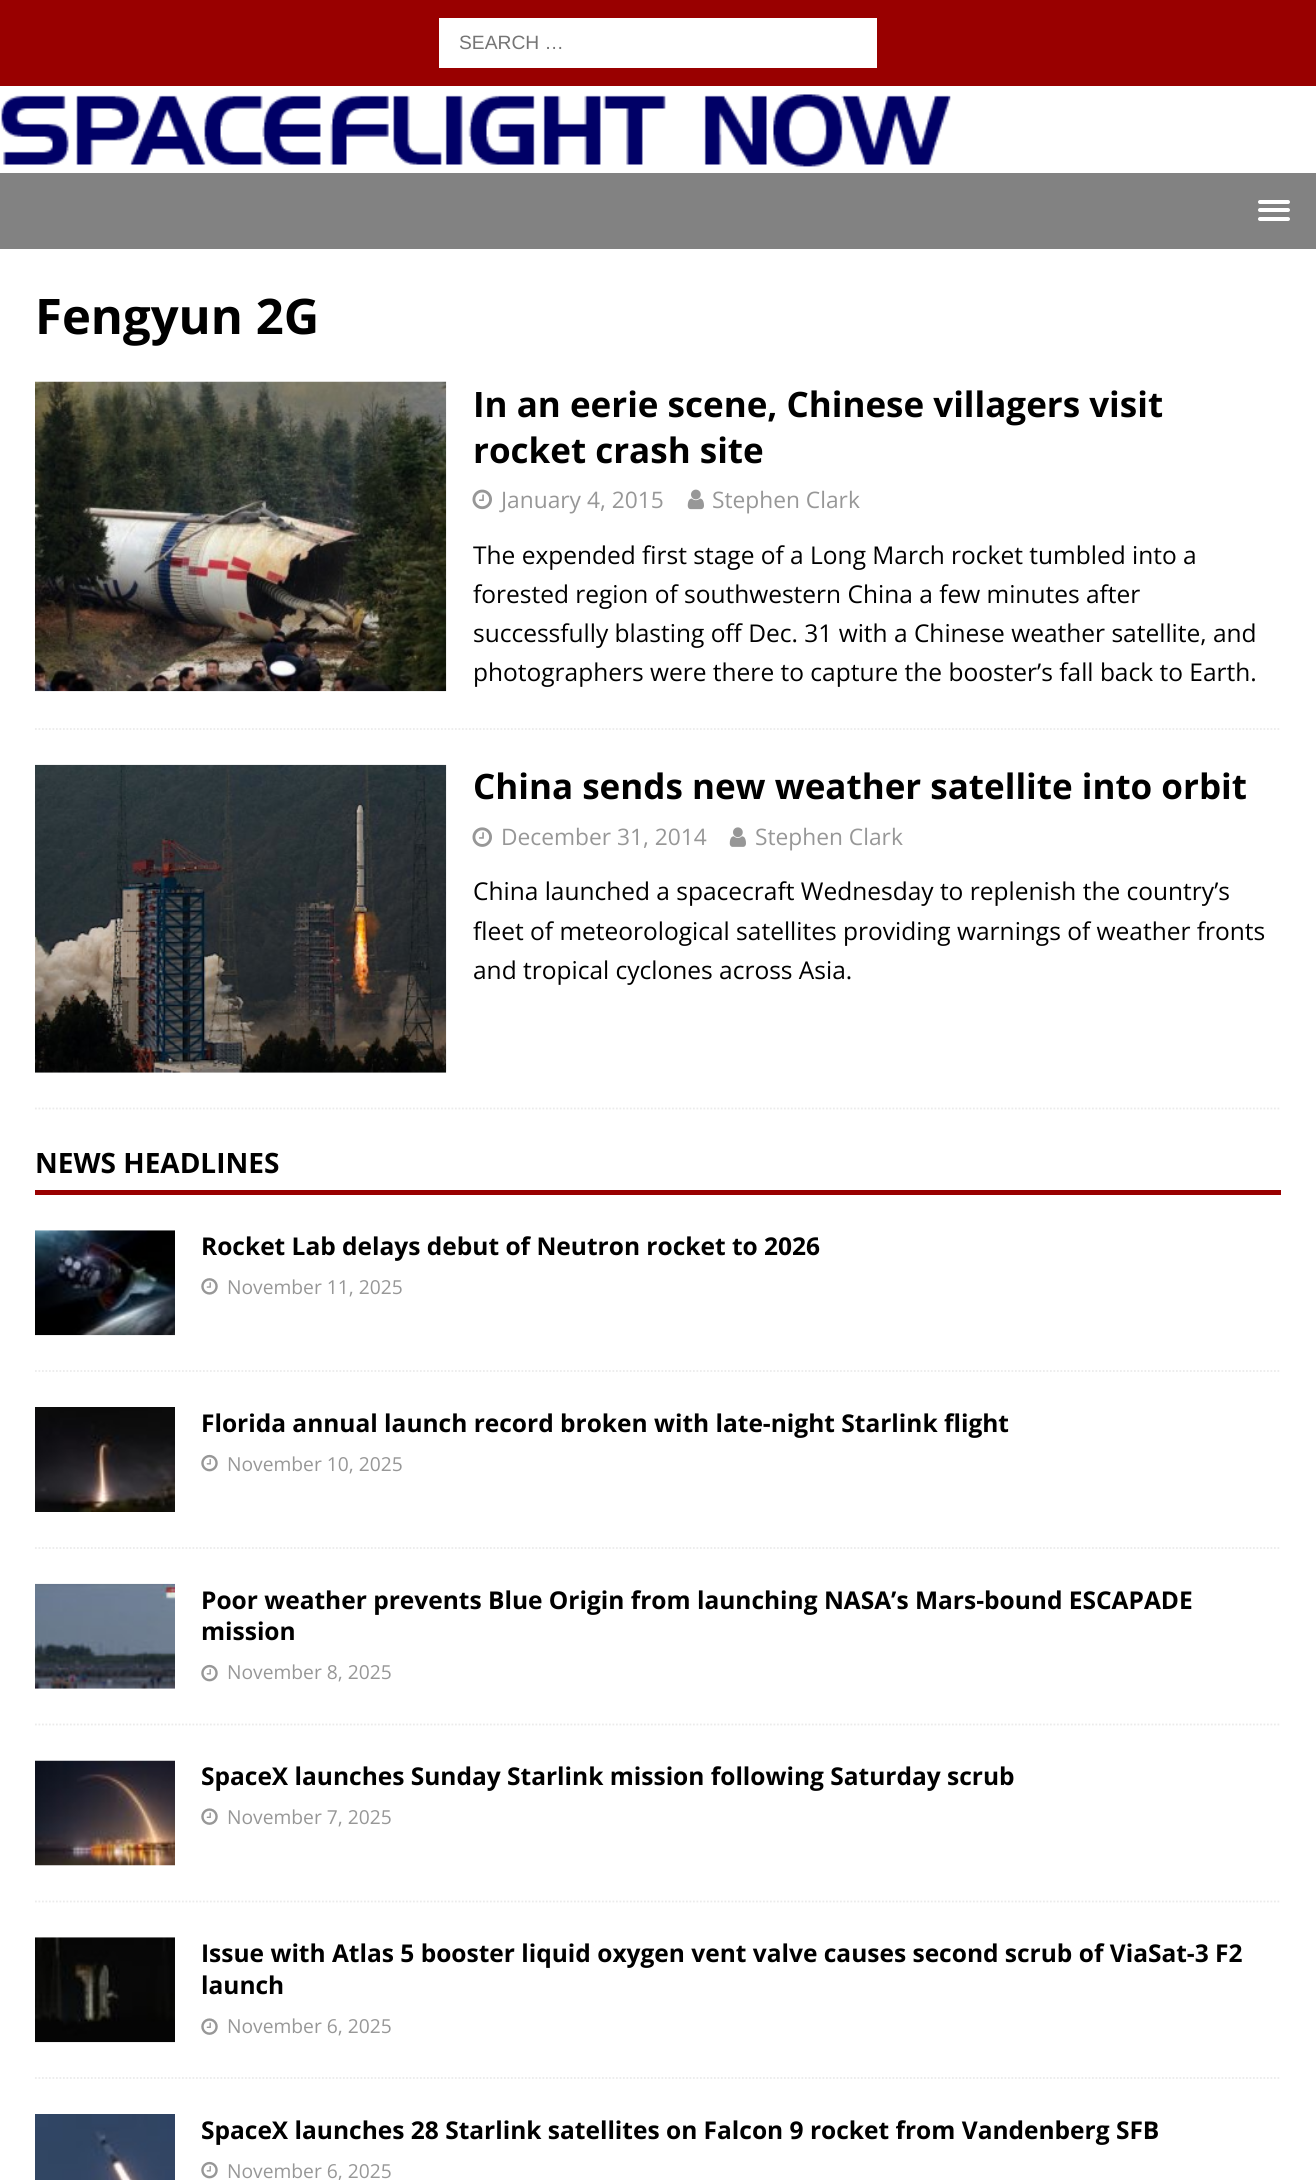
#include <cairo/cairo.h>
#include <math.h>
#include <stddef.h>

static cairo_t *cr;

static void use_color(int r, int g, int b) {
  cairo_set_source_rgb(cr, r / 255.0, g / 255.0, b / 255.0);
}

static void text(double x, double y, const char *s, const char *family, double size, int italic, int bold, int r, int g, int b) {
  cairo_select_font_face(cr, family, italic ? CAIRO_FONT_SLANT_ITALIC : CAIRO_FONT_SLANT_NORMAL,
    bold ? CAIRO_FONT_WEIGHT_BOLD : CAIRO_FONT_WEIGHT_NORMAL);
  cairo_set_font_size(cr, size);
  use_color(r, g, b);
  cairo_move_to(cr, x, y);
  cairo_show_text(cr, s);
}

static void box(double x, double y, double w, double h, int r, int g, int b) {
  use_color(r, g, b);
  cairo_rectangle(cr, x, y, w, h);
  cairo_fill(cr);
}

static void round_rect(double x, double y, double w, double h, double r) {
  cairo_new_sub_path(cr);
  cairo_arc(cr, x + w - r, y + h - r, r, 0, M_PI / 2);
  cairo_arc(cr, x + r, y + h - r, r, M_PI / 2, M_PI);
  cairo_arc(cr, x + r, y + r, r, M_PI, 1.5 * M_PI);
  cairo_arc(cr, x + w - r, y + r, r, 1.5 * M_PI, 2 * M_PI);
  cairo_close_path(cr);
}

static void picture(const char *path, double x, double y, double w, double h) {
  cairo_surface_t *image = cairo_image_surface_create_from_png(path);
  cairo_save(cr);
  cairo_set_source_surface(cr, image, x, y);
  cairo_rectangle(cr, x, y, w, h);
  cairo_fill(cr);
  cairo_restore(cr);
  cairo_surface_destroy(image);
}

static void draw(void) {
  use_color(153, 0, 0);
  cairo_paint(cr);
  box(439, 18, 438, 50, 255, 255, 255);
  box(0, 86, 1316, 87, 255, 255, 255);
  picture("img_01.png", 1, 94, 950, 73);
  box(0, 173, 1316, 76, 130, 130, 130);
  use_color(255, 255, 255);
  round_rect(1258, 200, 32, 4, 2);
  cairo_fill(cr);
  round_rect(1258, 208, 32, 4, 2);
  cairo_fill(cr);
  round_rect(1258, 217, 32, 4, 2);
  cairo_fill(cr);
  box(0, 249, 1316, 1931, 255, 255, 255);
  cairo_new_path(cr);
  cairo_move_to(cr, 35, 729);
  cairo_line_to(cr, 1281, 729);
  use_color(235, 235, 235);
  cairo_set_line_width(cr, 1.8);
  cairo_set_dash(cr, (double[]){1.75, 1.75}, 2, 0);
  cairo_stroke(cr);
  picture("img_02.png", 35, 381, 412, 311);
  picture("img_03.png", 472, 489, 20, 21);
  picture("img_04.png", 687, 489, 17, 21);
  cairo_new_path(cr);
  cairo_move_to(cr, 35, 1108.5);
  cairo_line_to(cr, 1281, 1108.5);
  cairo_stroke(cr);
  picture("img_05.png", 35, 764, 412, 309);
  picture("img_06.png", 472, 827, 20, 20);
  picture("img_07.png", 729, 827, 17, 20);
  box(35, 1190, 1246, 5, 153, 0, 0);
  cairo_new_path(cr);
  cairo_move_to(cr, 35, 1371);
  cairo_line_to(cr, 1281, 1371);
  use_color(235, 235, 235);
  cairo_stroke(cr);
  picture("img_08.png", 35, 1230, 140, 106);
  picture("img_09.png", 201, 1278, 17, 17);
  cairo_new_path(cr);
  cairo_move_to(cr, 35, 1548);
  cairo_line_to(cr, 1281, 1548);
  cairo_stroke(cr);
  picture("img_10.png", 35, 1407, 140, 105);
  picture("img_11.png", 201, 1454, 17, 18);
  cairo_new_path(cr);
  cairo_move_to(cr, 35, 1724.5);
  cairo_line_to(cr, 1281, 1724.5);
  cairo_stroke(cr);
  picture("img_12.png", 35, 1583, 140, 106);
  picture("img_11.png", 201, 1664, 17, 18);
  cairo_new_path(cr);
  cairo_move_to(cr, 35, 1901.5);
  cairo_line_to(cr, 1281, 1901.5);
  cairo_stroke(cr);
  picture("img_13.png", 35, 1760, 140, 106);
  picture("img_14.png", 201, 1808, 17, 17);
  cairo_new_path(cr);
  cairo_move_to(cr, 35, 2078);
  cairo_line_to(cr, 1281, 2078);
  cairo_stroke(cr);
  picture("img_15.png", 35, 1937, 140, 106);
  picture("img_14.png", 201, 2018, 17, 17);
  picture("img_16.png", 35, 2114, 140, 66);
  picture("img_11.png", 201, 2161, 17, 18);
  text(459, 49, "SEARCH …", "Liberation Sans", 19.25, 0, 0, 117, 117, 117);
  text(35, 334, "Fengyun 2G", "Open Sans", 49, 0, 1, 0, 0, 0);
  text(473, 417, "In an eerie scene, Chinese villagers visit", "Open Sans", 35, 0, 1, 0, 0, 0);
  text(473, 463, "rocket crash site", "Open Sans", 35, 0, 1, 0, 0, 0);
  text(501, 508, "January 4, 2015", "Open Sans", 22.75, 0, 0, 151, 151, 151);
  text(712, 508, "Stephen Clark", "Open Sans", 22.75, 0, 0, 151, 151, 151);
  cairo_save(cr);
  cairo_rectangle(cr, 473, 536, 808, 157);
  cairo_clip(cr);
  text(473, 564, "The expended first stage of a Long March rocket tumbled into a", "Open Sans", 24.5, 0, 0, 0, 0, 0);
  cairo_restore(cr);
  text(473, 603, "forested region of southwestern China a few minutes after", "Open Sans", 24.5, 0, 0, 0, 0, 0);
  text(473, 642, "successfully blasting off Dec. 31 with a Chinese weather satellite, and", "Open Sans", 24.5, 0, 0, 0, 0, 0);
  text(473, 681, "photographers were there to capture the booster’s fall back to Earth.", "Open Sans", 24.5, 0, 0, 0, 0, 0);
  text(473, 799, "China sends new weather satellite into orbit", "Open Sans", 35, 0, 1, 0, 0, 0);
  text(501, 845, "December 31, 2014", "Open Sans", 22.75, 0, 0, 151, 151, 151);
  text(755, 845, "Stephen Clark", "Open Sans", 22.75, 0, 0, 151, 151, 151);
  text(473, 900, "China launched a spacecraft Wednesday to replenish the country’s", "Open Sans", 24.5, 0, 0, 0, 0, 0);
  text(473, 940, "fleet of meteorological satellites providing warnings of weather fronts", "Open Sans", 24.5, 0, 0, 0, 0, 0);
  text(473, 979, "and tropical cyclones across Asia.", "Open Sans", 24.5, 0, 0, 0, 0, 0);
  text(35, 1173, "NEWS HEADLINES", "Open Sans", 28, 0, 1, 0, 0, 0);
  text(201, 1255, "Rocket Lab delays debut of Neutron rocket to 2026", "Open Sans", 24.5, 0, 1, 0, 0, 0);
  text(227, 1294, "November 11, 2025", "Open Sans", 19.25, 0, 0, 151, 151, 151);
  text(201, 1432, "Florida annual launch record broken with late-night Starlink flight", "Open Sans", 24.5, 0, 1, 0, 0, 0);
  text(227, 1471, "November 10, 2025", "Open Sans", 19.25, 0, 0, 151, 151, 151);
  text(201, 1609, "Poor weather prevents Blue Origin from launching NASA’s Mars-bound ESCAPADE", "Open Sans", 24.5, 0, 1, 0, 0, 0);
  text(201, 1640, "mission", "Open Sans", 24.5, 0, 1, 0, 0, 0);
  text(227, 1679, "November 8, 2025", "Open Sans", 19.25, 0, 0, 151, 151, 151);
  text(201, 1785, "SpaceX launches Sunday Starlink mission following Saturday scrub", "Open Sans", 24.5, 0, 1, 0, 0, 0);
  text(227, 1824, "November 7, 2025", "Open Sans", 19.25, 0, 0, 151, 151, 151);
  text(201, 1962, "Issue with Atlas 5 booster liquid oxygen vent valve causes second scrub of ViaSat-3 F2", "Open Sans", 24.5, 0, 1, 0, 0, 0);
  text(201, 1994, "launch", "Open Sans", 24.5, 0, 1, 0, 0, 0);
  text(227, 2033, "November 6, 2025", "Open Sans", 19.25, 0, 0, 151, 151, 151);
  text(201, 2139, "SpaceX launches 28 Starlink satellites on Falcon 9 rocket from Vandenberg SFB", "Open Sans", 24.5, 0, 1, 0, 0, 0);
  text(227, 2178, "November 6, 2025", "Open Sans", 19.25, 0, 0, 151, 151, 151);
}

int main(void) {
  cairo_surface_t *surface = cairo_image_surface_create(CAIRO_FORMAT_RGB24, 1316, 2180);
  cr = cairo_create(surface);
  cairo_font_options_t *options = cairo_font_options_create();
  cairo_font_options_set_hint_metrics(options, CAIRO_HINT_METRICS_OFF);
  cairo_font_options_set_hint_style(options, CAIRO_HINT_STYLE_NONE);
  cairo_set_font_options(cr, options);
  cairo_set_miter_limit(cr, 4);
  draw();
  cairo_surface_write_to_png(surface, "out.png");
  cairo_font_options_destroy(options);
  cairo_destroy(cr);
  cairo_surface_destroy(surface);
  return 0;
}
